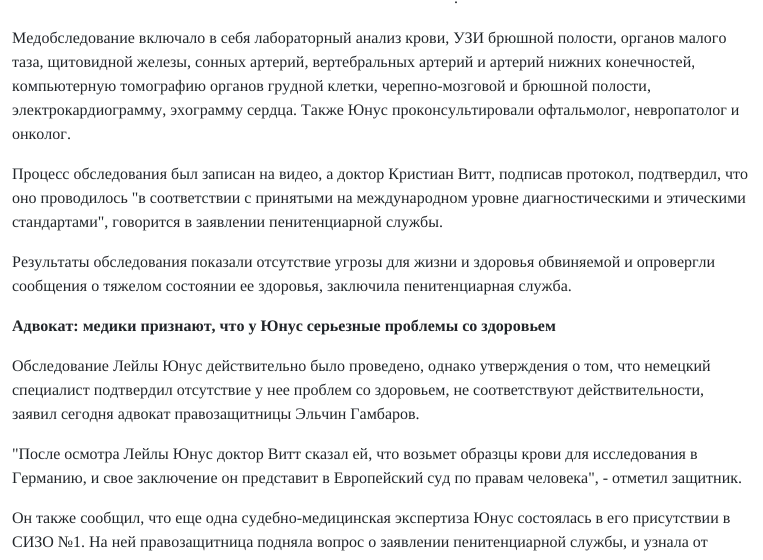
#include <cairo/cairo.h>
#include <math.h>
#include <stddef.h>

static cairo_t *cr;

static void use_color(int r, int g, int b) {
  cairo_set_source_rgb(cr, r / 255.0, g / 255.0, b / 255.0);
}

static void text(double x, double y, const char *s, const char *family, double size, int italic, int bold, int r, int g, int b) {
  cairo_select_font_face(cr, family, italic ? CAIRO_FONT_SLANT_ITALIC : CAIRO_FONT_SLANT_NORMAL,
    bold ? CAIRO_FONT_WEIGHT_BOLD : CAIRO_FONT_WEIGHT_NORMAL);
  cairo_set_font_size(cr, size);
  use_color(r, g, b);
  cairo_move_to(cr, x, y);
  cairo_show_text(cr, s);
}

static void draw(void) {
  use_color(255, 255, 255);
  cairo_paint(cr);
  text(454, 3, ".", "Liberation Serif", 16, 0, 0, 33, 37, 41);
  text(12, 43, "Медобследование включало в себя лабораторный анализ крови, УЗИ брюшной полости, органов малого", "Liberation Serif", 16, 0, 0, 33, 37, 41);
  text(12, 67, "таза, щитовидной железы, сонных артерий, вертебральных артерий и артерий нижних конечностей,", "Liberation Serif", 16, 0, 0, 33, 37, 41);
  text(12, 91, "компьютерную томографию органов грудной клетки, черепно-мозговой и брюшной полости,", "Liberation Serif", 16, 0, 0, 33, 37, 41);
  text(12, 115, "электрокардиограмму, эхограмму сердца. Также Юнус проконсультировали офтальмолог, невропатолог и", "Liberation Serif", 16, 0, 0, 33, 37, 41);
  text(12, 139, "онколог.", "Liberation Serif", 16, 0, 0, 33, 37, 41);
  text(12, 179, "Процесс обследования был записан на видео, а доктор Кристиан Витт, подписав протокол, подтвердил, что", "Liberation Serif", 16, 0, 0, 33, 37, 41);
  text(12, 203, "оно проводилось \"в соответствии с принятыми на международном уровне диагностическими и этическими", "Liberation Serif", 16, 0, 0, 33, 37, 41);
  text(12, 227, "стандартами\", говорится в заявлении пенитенциарной службы.", "Liberation Serif", 16, 0, 0, 33, 37, 41);
  text(12, 267, "Результаты обследования показали отсутствие угрозы для жизни и здоровья обвиняемой и опровергли", "Liberation Serif", 16, 0, 0, 33, 37, 41);
  text(12, 291, "сообщения о тяжелом состоянии ее здоровья, заключила пенитенциарная служба.", "Liberation Serif", 16, 0, 0, 33, 37, 41);
  text(12, 331, "Адвокат: медики признают, что у Юнус серьезные проблемы со здоровьем", "Liberation Serif", 16, 0, 1, 33, 37, 41);
  text(12, 371, "Обследование Лейлы Юнус действительно было проведено, однако утверждения о том, что немецкий", "Liberation Serif", 16, 0, 0, 33, 37, 41);
  text(12, 395, "специалист подтвердил отсутствие у нее проблем со здоровьем, не соответствуют действительности,", "Liberation Serif", 16, 0, 0, 33, 37, 41);
  text(12, 419, "заявил сегодня адвокат правозащитницы Эльчин Гамбаров.", "Liberation Serif", 16, 0, 0, 33, 37, 41);
  text(12, 459, "\"После осмотра Лейлы Юнус доктор Витт сказал ей, что возьмет образцы крови для исследования в", "Liberation Serif", 16, 0, 0, 33, 37, 41);
  text(12, 483, "Германию, и свое заключение он представит в Европейский суд по правам человека\", - отметил защитник.", "Liberation Serif", 16, 0, 0, 33, 37, 41);
  text(12, 523, "Он также сообщил, что еще одна судебно-медицинская экспертиза Юнус состоялась в его присутствии в", "Liberation Serif", 16, 0, 0, 33, 37, 41);
  text(12, 547, "СИЗО №1. На ней правозащитница подняла вопрос о заявлении пенитенциарной службы, и узнала от", "Liberation Serif", 16, 0, 0, 33, 37, 41);
}

int main(void) {
  cairo_surface_t *surface = cairo_image_surface_create(CAIRO_FORMAT_RGB24, 763, 560);
  cr = cairo_create(surface);
  cairo_font_options_t *options = cairo_font_options_create();
  cairo_font_options_set_hint_metrics(options, CAIRO_HINT_METRICS_OFF);
  cairo_font_options_set_hint_style(options, CAIRO_HINT_STYLE_NONE);
  cairo_set_font_options(cr, options);
  cairo_set_miter_limit(cr, 4);
  draw();
  cairo_surface_write_to_png(surface, "out.png");
  cairo_font_options_destroy(options);
  cairo_destroy(cr);
  cairo_surface_destroy(surface);
  return 0;
}
